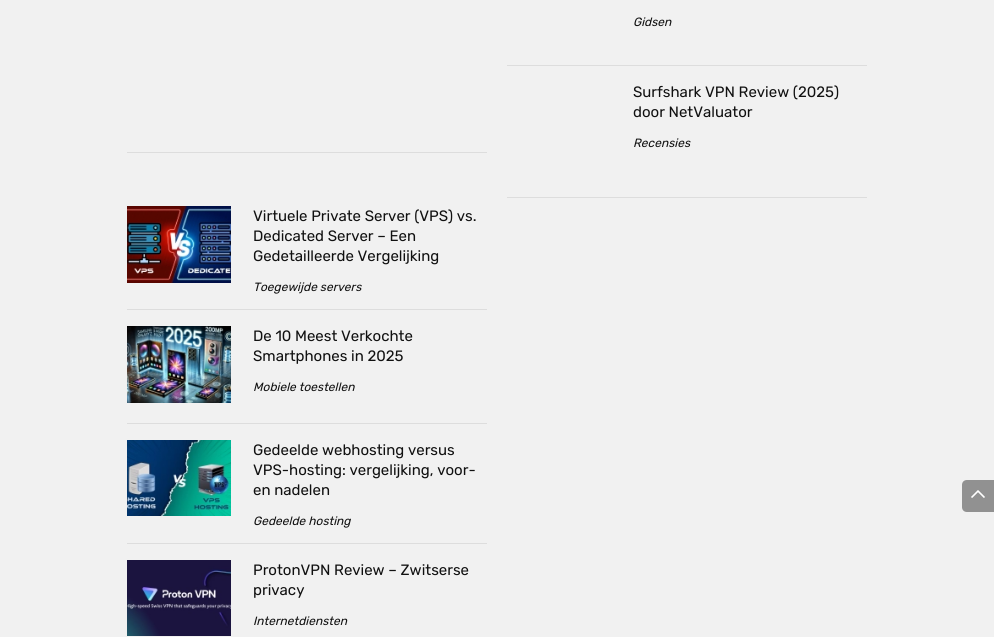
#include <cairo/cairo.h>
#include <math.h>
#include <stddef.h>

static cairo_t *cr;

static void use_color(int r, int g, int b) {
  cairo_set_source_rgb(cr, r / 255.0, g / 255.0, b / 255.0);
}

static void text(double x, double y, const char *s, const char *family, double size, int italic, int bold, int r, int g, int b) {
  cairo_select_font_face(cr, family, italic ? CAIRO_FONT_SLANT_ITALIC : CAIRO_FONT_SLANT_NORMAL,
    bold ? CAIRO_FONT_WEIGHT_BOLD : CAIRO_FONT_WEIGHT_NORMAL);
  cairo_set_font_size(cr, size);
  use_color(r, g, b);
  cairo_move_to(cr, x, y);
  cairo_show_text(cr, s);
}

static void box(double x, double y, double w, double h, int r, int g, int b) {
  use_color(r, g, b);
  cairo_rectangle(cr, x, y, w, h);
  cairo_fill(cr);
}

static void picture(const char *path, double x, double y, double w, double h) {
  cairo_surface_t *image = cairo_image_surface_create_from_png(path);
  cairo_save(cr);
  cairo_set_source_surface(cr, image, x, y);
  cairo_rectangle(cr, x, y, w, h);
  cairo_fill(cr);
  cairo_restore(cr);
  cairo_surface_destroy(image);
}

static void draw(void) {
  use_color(241, 241, 241);
  cairo_paint(cr);
  box(507, 65, 360, 1, 221, 221, 221);
  box(127, 152, 360, 1, 221, 221, 221);
  box(507, 197, 360, 1, 221, 221, 221);
  box(127, 309, 360, 1, 221, 221, 221);
  picture("img_01.png", 127, 206, 104, 77);
  box(127, 423, 360, 1, 221, 221, 221);
  picture("img_02.png", 127, 326, 104, 77);
  box(127, 543, 360, 1, 221, 221, 221);
  picture("img_03.png", 127, 440, 104, 76);
  picture("img_04.png", 127, 560, 104, 76);
  use_color(145, 145, 145);
  cairo_new_path(cr);
  cairo_move_to(cr, 967, 480);
  cairo_line_to(cr, 994, 480);
  cairo_line_to(cr, 994, 512);
  cairo_line_to(cr, 967, 512);
  cairo_curve_to(cr, 964, 512, 962, 510, 962, 507);
  cairo_line_to(cr, 962, 485);
  cairo_curve_to(cr, 962, 482, 964, 480, 967, 480);
  cairo_close_path(cr);
  cairo_fill(cr);
  picture("img_05.png", 971, 490, 14, 8);
  text(633, 26, "Gidsen", "Rubik Light", 12, 1, 0, 17, 17, 17);
  text(633, 97, "Surfshark VPN Review (2025)", "Rubik Light", 15, 0, 0, 17, 17, 17);
  text(633, 117, "door NetValuator", "Rubik Light", 15, 0, 0, 17, 17, 17);
  text(633, 147, "Recensies", "Rubik Light", 12, 1, 0, 17, 17, 17);
  text(253, 221, "Virtuele Private Server (VPS) vs.", "Rubik Light", 15, 0, 0, 17, 17, 17);
  text(253, 241, "Dedicated Server – Een", "Rubik Light", 15, 0, 0, 17, 17, 17);
  text(253, 261, "Gedetailleerde Vergelijking", "Rubik Light", 15, 0, 0, 17, 17, 17);
  text(253, 291, "Toegewijde servers", "Rubik Light", 12, 1, 0, 17, 17, 17);
  text(253, 341, "De 10 Meest Verkochte", "Rubik Light", 15, 0, 0, 17, 17, 17);
  text(253, 361, "Smartphones in 2025", "Rubik Light", 15, 0, 0, 17, 17, 17);
  text(253, 391, "Mobiele toestellen", "Rubik Light", 12, 1, 0, 17, 17, 17);
  text(253, 455, "Gedeelde webhosting versus", "Rubik Light", 15, 0, 0, 17, 17, 17);
  text(253, 475, "VPS-hosting: vergelijking, voor-", "Rubik Light", 15, 0, 0, 17, 17, 17);
  text(253, 495, "en nadelen", "Rubik Light", 15, 0, 0, 17, 17, 17);
  text(253, 525, "Gedeelde hosting", "Rubik Light", 12, 1, 0, 17, 17, 17);
  text(253, 575, "ProtonVPN Review – Zwitserse", "Rubik Light", 15, 0, 0, 17, 17, 17);
  text(253, 595, "privacy", "Rubik Light", 15, 0, 0, 17, 17, 17);
  text(253, 625, "Internetdiensten", "Rubik Light", 12, 1, 0, 17, 17, 17);
}

int main(void) {
  cairo_surface_t *surface = cairo_image_surface_create(CAIRO_FORMAT_RGB24, 994, 637);
  cr = cairo_create(surface);
  cairo_font_options_t *options = cairo_font_options_create();
  cairo_font_options_set_hint_metrics(options, CAIRO_HINT_METRICS_OFF);
  cairo_font_options_set_hint_style(options, CAIRO_HINT_STYLE_NONE);
  cairo_set_font_options(cr, options);
  cairo_set_miter_limit(cr, 4);
  draw();
  cairo_surface_write_to_png(surface, "out.png");
  cairo_font_options_destroy(options);
  cairo_destroy(cr);
  cairo_surface_destroy(surface);
  return 0;
}
